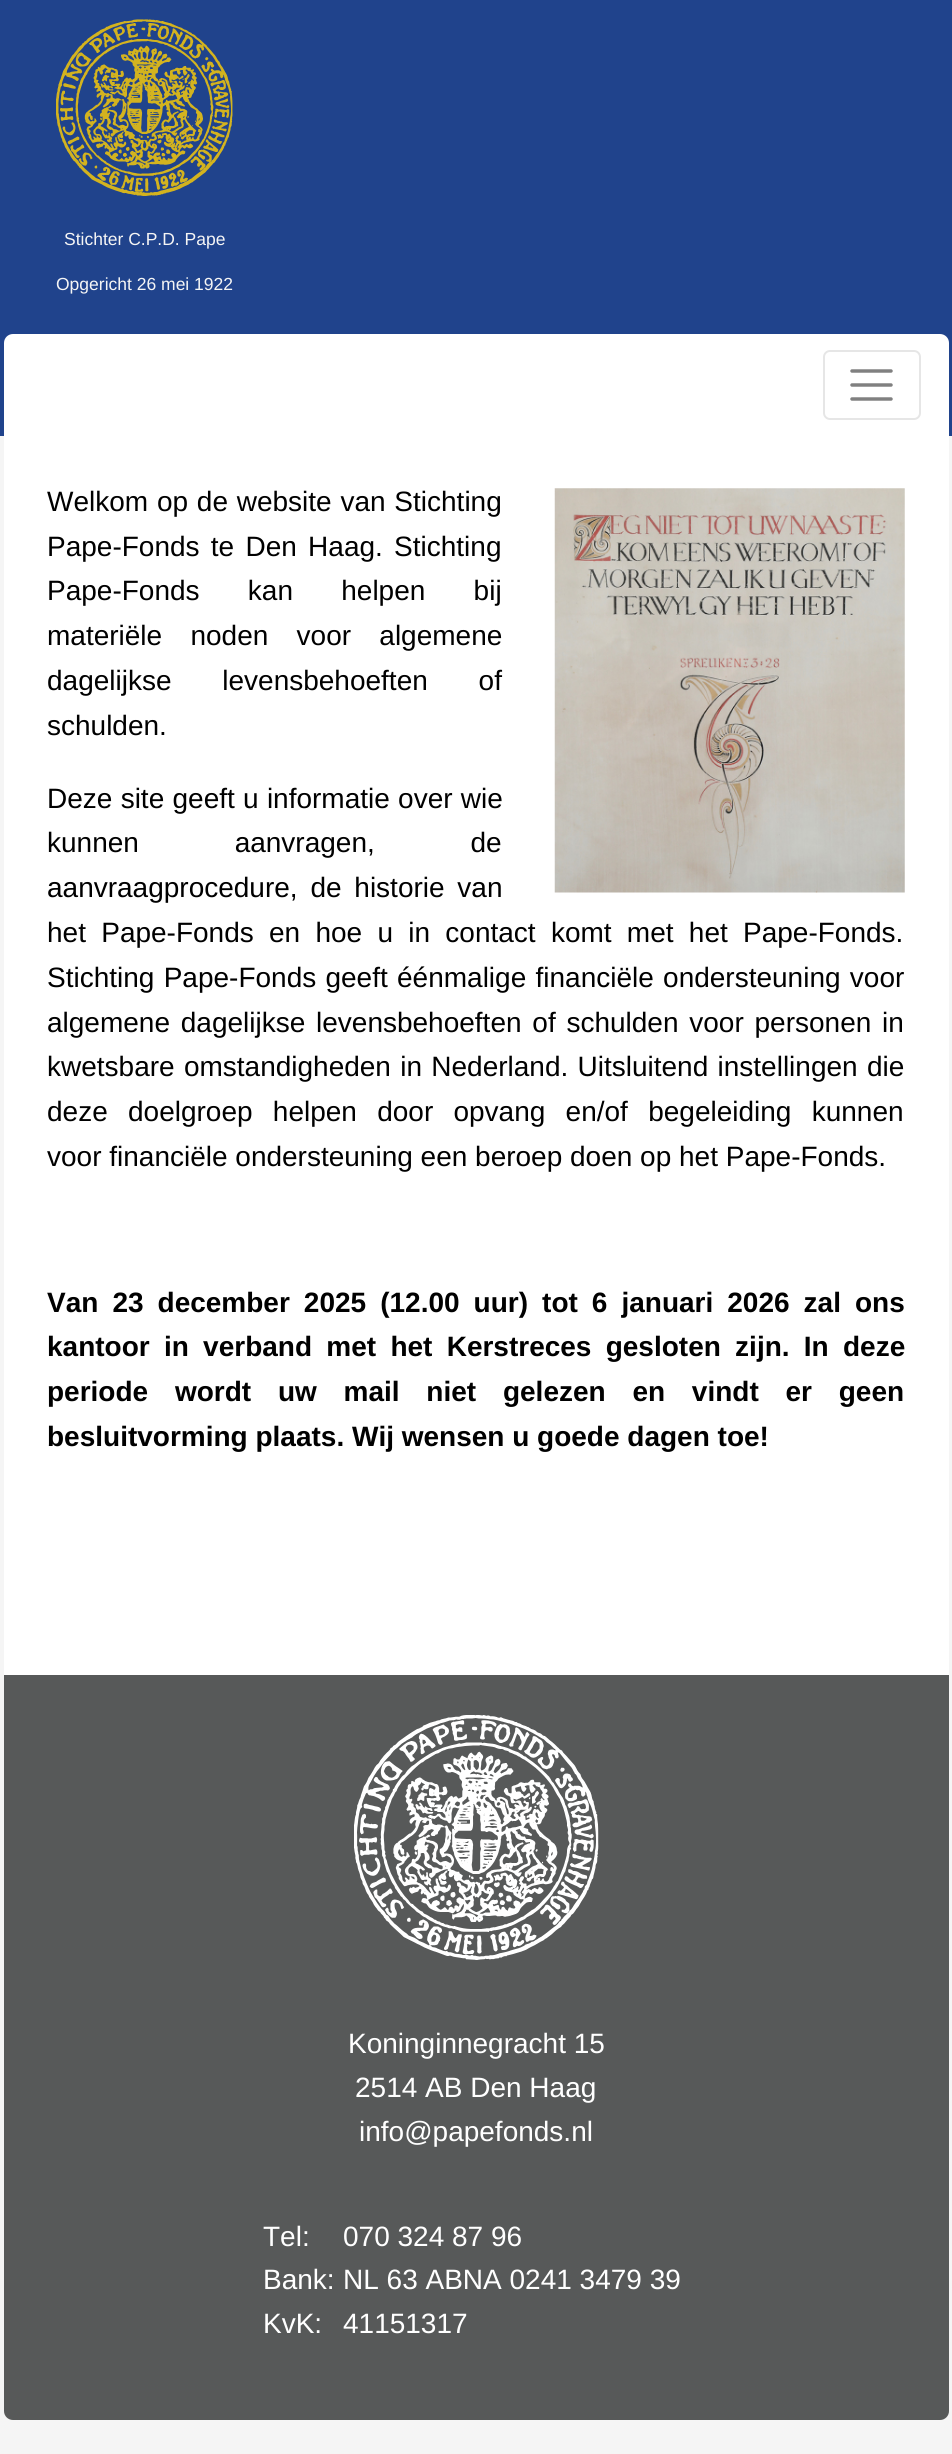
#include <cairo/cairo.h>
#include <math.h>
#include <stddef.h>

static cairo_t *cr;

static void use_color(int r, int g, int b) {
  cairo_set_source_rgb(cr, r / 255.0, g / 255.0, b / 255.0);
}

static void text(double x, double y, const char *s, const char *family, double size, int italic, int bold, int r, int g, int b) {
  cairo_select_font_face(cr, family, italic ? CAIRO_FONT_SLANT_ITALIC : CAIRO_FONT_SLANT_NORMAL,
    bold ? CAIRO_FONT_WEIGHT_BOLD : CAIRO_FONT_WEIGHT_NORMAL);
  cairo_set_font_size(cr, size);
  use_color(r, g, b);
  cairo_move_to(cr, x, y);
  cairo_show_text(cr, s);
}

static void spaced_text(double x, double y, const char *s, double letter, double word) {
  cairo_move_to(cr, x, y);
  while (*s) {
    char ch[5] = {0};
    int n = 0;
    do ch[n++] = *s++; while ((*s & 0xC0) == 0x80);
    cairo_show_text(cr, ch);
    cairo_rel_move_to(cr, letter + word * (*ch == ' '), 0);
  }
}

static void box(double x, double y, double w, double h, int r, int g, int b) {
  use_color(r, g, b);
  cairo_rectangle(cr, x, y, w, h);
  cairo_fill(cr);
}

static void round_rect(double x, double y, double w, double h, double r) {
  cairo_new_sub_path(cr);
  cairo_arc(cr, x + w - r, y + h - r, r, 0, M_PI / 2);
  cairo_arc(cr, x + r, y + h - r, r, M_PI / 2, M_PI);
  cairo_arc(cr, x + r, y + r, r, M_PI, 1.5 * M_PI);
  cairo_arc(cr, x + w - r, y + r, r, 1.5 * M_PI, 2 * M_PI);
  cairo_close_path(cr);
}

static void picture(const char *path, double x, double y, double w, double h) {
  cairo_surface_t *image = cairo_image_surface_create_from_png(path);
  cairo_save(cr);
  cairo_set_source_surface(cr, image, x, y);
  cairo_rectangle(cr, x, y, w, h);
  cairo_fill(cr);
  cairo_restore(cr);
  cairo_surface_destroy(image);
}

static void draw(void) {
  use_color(245, 245, 245);
  cairo_paint(cr);
  box(0, 0, 952, 436, 32, 67, 140);
  picture("img_01.png", 56, 19, 177, 177);
  use_color(255, 255, 255);
  cairo_new_path(cr);
  cairo_move_to(cr, 13, 334);
  cairo_line_to(cr, 940, 334);
  cairo_curve_to(cr, 945, 334, 949, 338, 949, 343);
  cairo_line_to(cr, 949, 436);
  cairo_line_to(cr, 4, 436);
  cairo_line_to(cr, 4, 343);
  cairo_curve_to(cr, 4, 338, 8, 334, 13, 334);
  cairo_close_path(cr);
  cairo_fill(cr);
  round_rect(824, 351, 96, 68, 6);
  use_color(230, 230, 230);
  cairo_stroke(cr);
  cairo_new_path(cr);
  cairo_move_to(cr, 852, 371);
  cairo_line_to(cr, 891, 371);
  cairo_move_to(cr, 852, 385);
  cairo_line_to(cr, 891, 385);
  cairo_move_to(cr, 852, 399);
  cairo_line_to(cr, 891, 399);
  use_color(128, 128, 128);
  cairo_set_line_width(cr, 3.5);
  cairo_set_line_cap(cr, CAIRO_LINE_CAP_ROUND);
  cairo_stroke(cr);
  box(4, 436, 945, 1239, 255, 255, 255);
  picture("img_02.png", 554, 488, 351, 405);
  use_color(87, 89, 89);
  cairo_new_path(cr);
  cairo_move_to(cr, 4, 1675);
  cairo_line_to(cr, 949, 1675);
  cairo_line_to(cr, 949, 2411);
  cairo_curve_to(cr, 949, 2416, 945, 2420, 940, 2420);
  cairo_line_to(cr, 13, 2420);
  cairo_curve_to(cr, 8, 2420, 4, 2416, 4, 2411);
  cairo_close_path(cr);
  cairo_fill(cr);
  picture("img_03.png", 354, 1715, 245, 245);
  text(64, 245, "Stichter C.P.D. Pape", "Liberation Sans", 17.5, 0, 0, 245, 245, 245);
  text(56, 290, "Opgericht 26 mei 1922", "Liberation Sans", 17.5, 0, 0, 245, 245, 245);
  cairo_set_font_size(cr, 28);
  use_color(0, 0, 0);
  spaced_text(47, 511, "Welkom op de website van Stichting", 0, 1);
  spaced_text(47, 556, "Pape-Fonds te Den Haag. Stichting", 0, 3.5);
  spaced_text(47, 600, "Pape-Fonds kan helpen bij", 0, 40.5);
  spaced_text(47, 645, "materiële noden voor algemene", 0, 20.5);
  spaced_text(47, 690, "dagelijkse levensbehoeften of", 0, 43);
  text(47, 735, "schulden.", "Liberation Sans", 28, 0, 0, 0, 0, 0);
  spaced_text(47, 808, "Deze site geeft u informatie over wie", 0, 0.5);
  spaced_text(47, 852, "kunnen aanvragen, de", 0, 88);
  spaced_text(47, 897, "aanvraagprocedure, de historie van", 0, 5);
  spaced_text(47, 942, "het Pape-Fonds en hoe u in contact komt met het Pape-Fonds.", 0, 7.5);
  spaced_text(47, 987, "Stichting Pape-Fonds geeft éénmalige financiële ondersteuning voor", 0, 1.5);
  spaced_text(47, 1032, "algemene dagelijkse levensbehoeften of schulden voor personen in", 0, 3);
  spaced_text(47, 1076, "kwetsbare omstandigheden in Nederland. Uitsluitend instellingen die", 0, 1.5);
  spaced_text(47, 1121, "deze doelgroep helpen door opvang en/of begeleiding kunnen", 0, 12.5);
  text(47, 1166, "voor financiële ondersteuning een beroep doen op het Pape-Fonds.", "Liberation Sans", 28, 0, 0, 0, 0, 0);
  cairo_select_font_face(cr, "Liberation Sans", CAIRO_FONT_SLANT_NORMAL, CAIRO_FONT_WEIGHT_BOLD);
  spaced_text(47, 1312, "Van 23 december 2025 (12.00 uur) tot 6 januari 2026 zal ons", 0, 6.25);
  spaced_text(47, 1356, "kantoor in verband met het Kerstreces gesloten zijn. In deze", 0, 6.5);
  spaced_text(47, 1401, "periode wordt uw mail niet gelezen en vindt er geen", 0, 19);
  text(47, 1446, "besluitvorming plaats. Wij wensen u goede dagen toe!", "Liberation Sans", 28, 0, 1, 0, 0, 0);
  text(348, 2053, "Koninginnegracht 15", "Liberation Sans", 28, 0, 0, 255, 255, 255);
  text(355, 2097, "2514 AB Den Haag", "Liberation Sans", 28, 0, 0, 255, 255, 255);
  text(359, 2141, "info@papefonds.nl", "Liberation Sans", 28, 0, 0, 255, 255, 255);
  text(263, 2246, "Tel:", "Liberation Sans", 28, 0, 0, 255, 255, 255);
  text(343, 2246, "070 324 87 96", "Liberation Sans", 28, 0, 0, 255, 255, 255);
  text(263, 2289, "Bank:", "Liberation Sans", 28, 0, 0, 255, 255, 255);
  text(343, 2289, "NL 63 ABNA 0241 3479 39", "Liberation Sans", 28, 0, 0, 255, 255, 255);
  text(263, 2333, "KvK:", "Liberation Sans", 28, 0, 0, 255, 255, 255);
  text(343, 2333, "41151317", "Liberation Sans", 28, 0, 0, 255, 255, 255);
}

int main(void) {
  cairo_surface_t *surface = cairo_image_surface_create(CAIRO_FORMAT_RGB24, 952, 2454);
  cr = cairo_create(surface);
  cairo_font_options_t *options = cairo_font_options_create();
  cairo_font_options_set_hint_metrics(options, CAIRO_HINT_METRICS_OFF);
  cairo_font_options_set_hint_style(options, CAIRO_HINT_STYLE_NONE);
  cairo_set_font_options(cr, options);
  cairo_set_miter_limit(cr, 4);
  draw();
  cairo_surface_write_to_png(surface, "out.png");
  cairo_font_options_destroy(options);
  cairo_destroy(cr);
  cairo_surface_destroy(surface);
  return 0;
}
